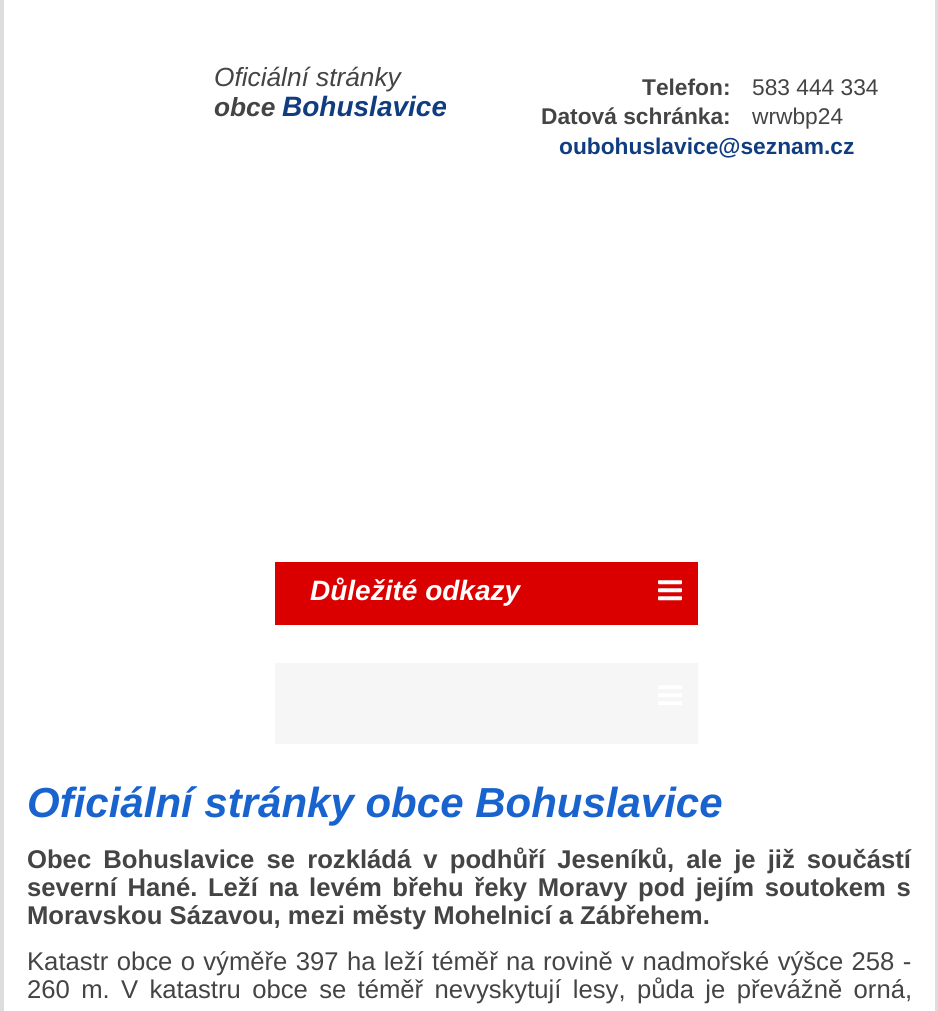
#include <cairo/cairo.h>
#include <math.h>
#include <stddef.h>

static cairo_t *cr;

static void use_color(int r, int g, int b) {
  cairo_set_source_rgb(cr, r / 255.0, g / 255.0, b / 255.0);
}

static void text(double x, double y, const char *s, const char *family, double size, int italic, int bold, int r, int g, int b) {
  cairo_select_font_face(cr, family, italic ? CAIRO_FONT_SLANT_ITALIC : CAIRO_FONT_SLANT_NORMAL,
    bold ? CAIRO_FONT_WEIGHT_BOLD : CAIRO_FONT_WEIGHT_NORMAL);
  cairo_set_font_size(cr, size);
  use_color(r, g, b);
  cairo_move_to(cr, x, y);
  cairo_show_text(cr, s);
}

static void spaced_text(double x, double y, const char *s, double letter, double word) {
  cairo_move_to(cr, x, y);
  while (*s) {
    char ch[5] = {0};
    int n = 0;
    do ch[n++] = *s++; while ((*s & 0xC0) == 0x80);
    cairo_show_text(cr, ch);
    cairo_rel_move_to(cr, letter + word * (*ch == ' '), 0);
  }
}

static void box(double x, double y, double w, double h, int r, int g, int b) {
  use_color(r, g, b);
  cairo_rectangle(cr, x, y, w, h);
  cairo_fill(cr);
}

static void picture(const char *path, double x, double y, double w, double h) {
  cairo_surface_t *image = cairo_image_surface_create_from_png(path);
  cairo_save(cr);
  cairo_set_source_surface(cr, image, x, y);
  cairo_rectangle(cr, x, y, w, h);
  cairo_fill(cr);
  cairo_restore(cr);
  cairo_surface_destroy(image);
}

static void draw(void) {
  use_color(221, 221, 221);
  cairo_paint(cr);
  box(4, 0, 931, 1011, 255, 255, 255);
  box(275, 562, 423, 63, 219, 0, 0);
  picture("img_01.png", 658, 580, 24, 21);
  box(275, 663, 423, 81, 246, 246, 246);
  picture("img_02.png", 658, 685, 24, 20);
  text(214, 86, "Oficiální stránky", "Liberation Sans", 26.25, 1, 0, 68, 68, 68);
  text(214, 116, "obce", "Liberation Sans", 26.25, 1, 1, 68, 68, 68);
  text(282, 116, "Bohuslavice", "Liberation Sans", 28, 1, 1, 16, 61, 128);
  text(642, 95, "Telefon:", "Liberation Sans", 22.75, 0, 1, 68, 68, 68);
  text(752, 95, "583 444 334", "Liberation Sans", 22.75, 0, 0, 68, 68, 68);
  text(541, 124, "Datová schránka:", "Liberation Sans", 22.75, 0, 1, 68, 68, 68);
  text(752, 124, "wrwbp24", "Liberation Sans", 22.75, 0, 0, 68, 68, 68);
  text(559, 154, "oubohuslavice@seznam.cz", "Liberation Sans", 22.75, 0, 1, 16, 61, 128);
  text(310, 600, "Důležité odkazy", "Liberation Sans", 28, 1, 1, 255, 255, 255);
  text(27, 817, "Oficiální stránky obce Bohuslavice", "Liberation Sans", 42, 1, 1, 25, 99, 206);
  cairo_select_font_face(cr, "Liberation Sans", CAIRO_FONT_SLANT_NORMAL, CAIRO_FONT_WEIGHT_BOLD);
  cairo_set_font_size(cr, 25.65);
  use_color(68, 68, 68);
  spaced_text(27, 868, "Obec Bohuslavice se rozkládá v podhůří Jeseníků, ale je již součástí", 0, 5);
  spaced_text(27, 896, "severní Hané. Leží na levém břehu řeky Moravy pod jejím soutokem s", 0, 3.5);
  text(27, 924, "Moravskou Sázavou, mezi městy Mohelnicí a Zábřehem.", "Liberation Sans", 25.65, 0, 1, 68, 68, 68);
  cairo_select_font_face(cr, "Liberation Sans", CAIRO_FONT_SLANT_NORMAL, CAIRO_FONT_WEIGHT_NORMAL);
  spaced_text(27, 970, "Katastr obce o výměře 397 ha leží téměř na rovině v nadmořské výšce 258 -", 0, 1.25);
  spaced_text(27, 998, "260 m. V katastru obce se téměř nevyskytují lesy, půda je převážně orná,", 0, 4.25);
}

int main(void) {
  cairo_surface_t *surface = cairo_image_surface_create(CAIRO_FORMAT_RGB24, 938, 1011);
  cr = cairo_create(surface);
  cairo_font_options_t *options = cairo_font_options_create();
  cairo_font_options_set_hint_metrics(options, CAIRO_HINT_METRICS_OFF);
  cairo_font_options_set_hint_style(options, CAIRO_HINT_STYLE_NONE);
  cairo_set_font_options(cr, options);
  cairo_set_miter_limit(cr, 4);
  draw();
  cairo_surface_write_to_png(surface, "out.png");
  cairo_font_options_destroy(options);
  cairo_destroy(cr);
  cairo_surface_destroy(surface);
  return 0;
}
